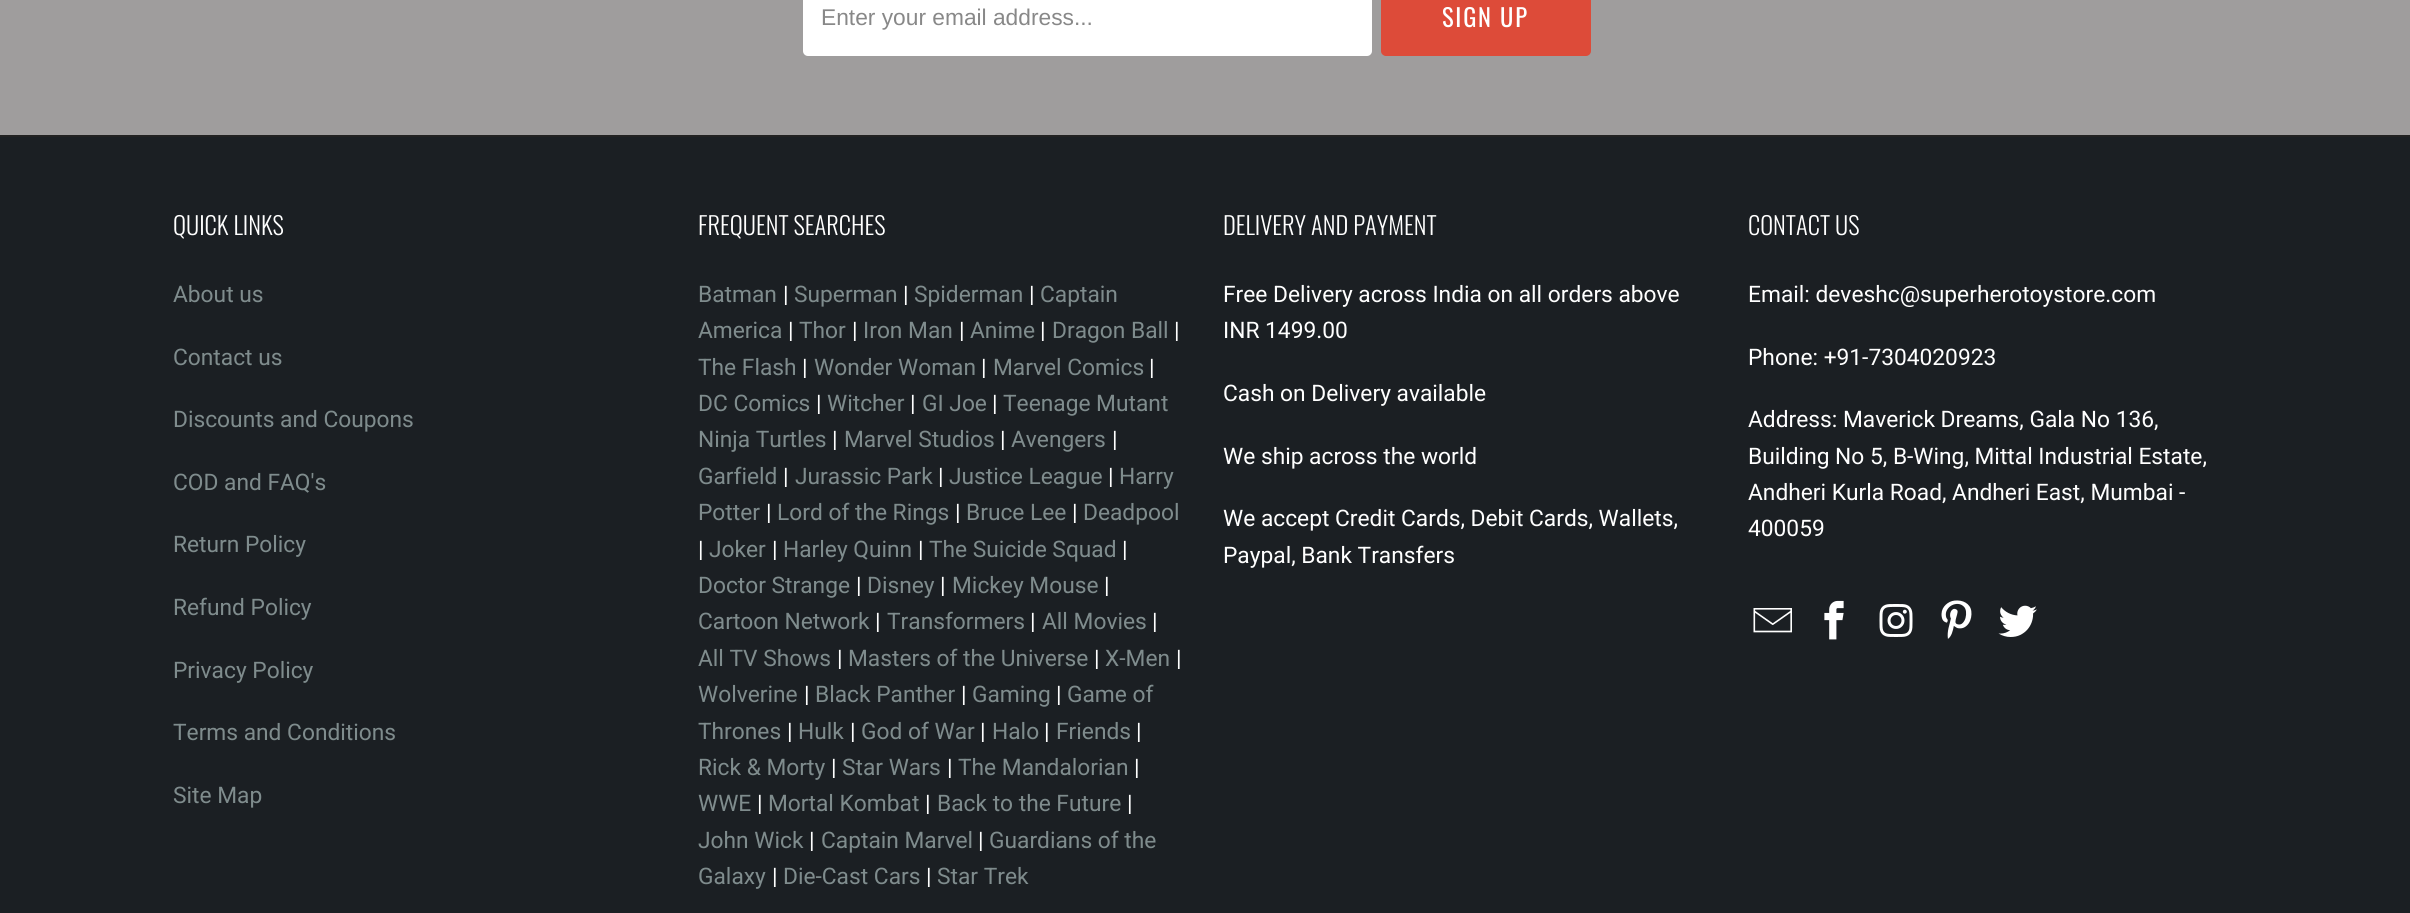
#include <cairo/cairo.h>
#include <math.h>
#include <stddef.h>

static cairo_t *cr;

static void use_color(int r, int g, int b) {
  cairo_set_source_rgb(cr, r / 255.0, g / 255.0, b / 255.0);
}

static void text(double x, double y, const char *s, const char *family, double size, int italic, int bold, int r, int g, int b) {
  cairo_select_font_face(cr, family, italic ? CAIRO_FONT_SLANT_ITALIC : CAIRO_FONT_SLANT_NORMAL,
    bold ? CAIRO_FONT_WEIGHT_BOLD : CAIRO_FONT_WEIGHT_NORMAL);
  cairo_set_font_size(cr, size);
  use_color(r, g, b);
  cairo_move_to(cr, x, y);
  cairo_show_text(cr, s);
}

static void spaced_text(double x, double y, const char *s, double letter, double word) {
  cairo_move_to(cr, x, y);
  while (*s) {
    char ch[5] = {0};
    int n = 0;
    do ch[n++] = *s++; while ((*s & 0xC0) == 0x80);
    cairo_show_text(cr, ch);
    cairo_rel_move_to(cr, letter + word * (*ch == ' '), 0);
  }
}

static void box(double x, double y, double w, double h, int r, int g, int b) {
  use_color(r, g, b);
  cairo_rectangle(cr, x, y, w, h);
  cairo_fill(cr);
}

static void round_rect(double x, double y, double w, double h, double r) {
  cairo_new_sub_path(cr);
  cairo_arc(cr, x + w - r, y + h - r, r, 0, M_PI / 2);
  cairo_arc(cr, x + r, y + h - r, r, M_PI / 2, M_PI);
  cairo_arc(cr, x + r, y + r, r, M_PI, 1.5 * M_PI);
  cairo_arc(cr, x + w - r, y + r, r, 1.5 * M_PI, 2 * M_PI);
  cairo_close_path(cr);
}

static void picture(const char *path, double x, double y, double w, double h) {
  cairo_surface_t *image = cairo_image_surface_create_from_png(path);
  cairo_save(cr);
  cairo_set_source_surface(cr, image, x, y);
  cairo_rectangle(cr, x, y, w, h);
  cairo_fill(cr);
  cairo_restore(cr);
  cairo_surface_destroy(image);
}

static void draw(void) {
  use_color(27, 31, 35);
  cairo_paint(cr);
  box(0, 0, 2410, 135, 159, 157, 157);
  use_color(255, 255, 255);
  round_rect(803, -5, 569, 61, 5);
  cairo_fill(cr);
  use_color(221, 75, 57);
  round_rect(1382, -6, 208, 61, 4);
  cairo_fill_preserve(cr);
  cairo_stroke(cr);
  box(0, 135, 2410, 2, 34, 34, 34);
  picture("img_01.png", 1753, 608, 39, 25);
  picture("img_02.png", 1824, 600, 20, 40);
  picture("img_03.png", 1879, 604, 34, 33);
  picture("img_04.png", 1941, 600, 31, 39);
  picture("img_05.png", 1998, 605, 39, 32);
  text(821, 25, "Enter your email address...", "Liberation Sans", 22.75, 0, 0, 136, 136, 136);
  cairo_select_font_face(cr, "Oswald", CAIRO_FONT_SLANT_NORMAL, CAIRO_FONT_WEIGHT_NORMAL);
  cairo_set_font_size(cr, 24.5);
  use_color(255, 255, 255);
  spaced_text(1442, 27, "SIGN UP", 1.75, 0);
  text(173, 235, "QUICK LINKS", "Oswald Light", 24.5, 0, 0, 255, 255, 255);
  text(173, 302, "About us", "Roboto", 22.75, 0, 0, 127, 140, 141);
  text(173, 365, "Contact us", "Roboto", 22.75, 0, 0, 127, 140, 141);
  text(173, 427, "Discounts and Coupons", "Roboto", 22.75, 0, 0, 127, 140, 141);
  text(173, 490, "COD and FAQ's", "Roboto", 22.75, 0, 0, 127, 140, 141);
  text(173, 552, "Return Policy", "Roboto", 22.75, 0, 0, 127, 140, 141);
  text(173, 615, "Refund Policy", "Roboto", 22.75, 0, 0, 127, 140, 141);
  text(173, 678, "Privacy Policy", "Roboto", 22.75, 0, 0, 127, 140, 141);
  text(173, 740, "Terms and Conditions", "Roboto", 22.75, 0, 0, 127, 140, 141);
  text(173, 803, "Site Map", "Roboto", 22.75, 0, 0, 127, 140, 141);
  text(698, 235, "FREQUENT SEARCHES", "Oswald Light", 24.5, 0, 0, 255, 255, 255);
  text(698, 302, "Batman", "Roboto", 22.75, 0, 0, 127, 140, 141);
  text(783, 302, "|", "Roboto", 22.75, 0, 0, 255, 255, 255);
  text(794, 302, "Superman", "Roboto", 22.75, 0, 0, 127, 140, 141);
  text(903, 302, "|", "Roboto", 22.75, 0, 0, 255, 255, 255);
  text(914, 302, "Spiderman", "Roboto", 22.75, 0, 0, 127, 140, 141);
  text(1029, 302, "|", "Roboto", 22.75, 0, 0, 255, 255, 255);
  text(1040, 302, "Captain", "Roboto", 22.75, 0, 0, 127, 140, 141);
  text(698, 338, "America", "Roboto", 22.75, 0, 0, 127, 140, 141);
  text(788, 338, "|", "Roboto", 22.75, 0, 0, 255, 255, 255);
  text(799, 338, "Thor", "Roboto", 22.75, 0, 0, 127, 140, 141);
  text(852, 338, "|", "Roboto", 22.75, 0, 0, 255, 255, 255);
  text(863, 338, "Iron Man", "Roboto", 22.75, 0, 0, 127, 140, 141);
  text(959, 338, "|", "Roboto", 22.75, 0, 0, 255, 255, 255);
  text(970, 338, "Anime", "Roboto", 22.75, 0, 0, 127, 140, 141);
  text(1040, 338, "|", "Roboto", 22.75, 0, 0, 255, 255, 255);
  text(1052, 338, "Dragon Ball", "Roboto", 22.75, 0, 0, 127, 140, 141);
  text(1174, 338, "|", "Roboto", 22.75, 0, 0, 255, 255, 255);
  text(698, 375, "The Flash", "Roboto", 22.75, 0, 0, 127, 140, 141);
  text(802, 375, "|", "Roboto", 22.75, 0, 0, 255, 255, 255);
  text(814, 375, "Wonder Woman", "Roboto", 22.75, 0, 0, 127, 140, 141);
  text(981, 375, "|", "Roboto", 22.75, 0, 0, 255, 255, 255);
  text(993, 375, "Marvel Comics", "Roboto", 22.75, 0, 0, 127, 140, 141);
  text(1149, 375, "|", "Roboto", 22.75, 0, 0, 255, 255, 255);
  text(698, 411, "DC Comics", "Roboto", 22.75, 0, 0, 127, 140, 141);
  text(816, 411, "|", "Roboto", 22.75, 0, 0, 255, 255, 255);
  text(827, 411, "Witcher", "Roboto", 22.75, 0, 0, 127, 140, 141);
  text(910, 411, "|", "Roboto", 22.75, 0, 0, 255, 255, 255);
  text(922, 411, "GI Joe", "Roboto", 22.75, 0, 0, 127, 140, 141);
  text(992, 411, "|", "Roboto", 22.75, 0, 0, 255, 255, 255);
  text(1003, 411, "Teenage Mutant", "Roboto", 22.75, 0, 0, 127, 140, 141);
  text(698, 447, "Ninja Turtles", "Roboto", 22.75, 0, 0, 127, 140, 141);
  text(832, 447, "|", "Roboto", 22.75, 0, 0, 255, 255, 255);
  text(844, 447, "Marvel Studios", "Roboto", 22.75, 0, 0, 127, 140, 141);
  text(1000, 447, "|", "Roboto", 22.75, 0, 0, 255, 255, 255);
  text(1011, 447, "Avengers", "Roboto", 22.75, 0, 0, 127, 140, 141);
  text(1112, 447, "|", "Roboto", 22.75, 0, 0, 255, 255, 255);
  text(698, 484, "Garfield", "Roboto", 22.75, 0, 0, 127, 140, 141);
  text(783, 484, "|", "Roboto", 22.75, 0, 0, 255, 255, 255);
  text(795, 484, "Jurassic Park", "Roboto", 22.75, 0, 0, 127, 140, 141);
  text(938, 484, "|", "Roboto", 22.75, 0, 0, 255, 255, 255);
  text(949, 484, "Justice League", "Roboto", 22.75, 0, 0, 127, 140, 141);
  text(1108, 484, "|", "Roboto", 22.75, 0, 0, 255, 255, 255);
  text(1119, 484, "Harry", "Roboto", 22.75, 0, 0, 127, 140, 141);
  text(698, 520, "Potter", "Roboto", 22.75, 0, 0, 127, 140, 141);
  text(766, 520, "|", "Roboto", 22.75, 0, 0, 255, 255, 255);
  text(777, 520, "Lord of the Rings", "Roboto", 22.75, 0, 0, 127, 140, 141);
  text(955, 520, "|", "Roboto", 22.75, 0, 0, 255, 255, 255);
  text(966, 520, "Bruce Lee", "Roboto", 22.75, 0, 0, 127, 140, 141);
  text(1072, 520, "|", "Roboto", 22.75, 0, 0, 255, 255, 255);
  text(1083, 520, "Deadpool", "Roboto", 22.75, 0, 0, 127, 140, 141);
  text(698, 557, "|", "Roboto", 22.75, 0, 0, 255, 255, 255);
  text(709, 557, "Joker", "Roboto", 22.75, 0, 0, 127, 140, 141);
  text(772, 557, "|", "Roboto", 22.75, 0, 0, 255, 255, 255);
  text(783, 557, "Harley Quinn", "Roboto", 22.75, 0, 0, 127, 140, 141);
  text(918, 557, "|", "Roboto", 22.75, 0, 0, 255, 255, 255);
  text(929, 557, "The Suicide Squad", "Roboto", 22.75, 0, 0, 127, 140, 141);
  text(1122, 557, "|", "Roboto", 22.75, 0, 0, 255, 255, 255);
  text(698, 593, "Doctor Strange", "Roboto", 22.75, 0, 0, 127, 140, 141);
  text(856, 593, "|", "Roboto", 22.75, 0, 0, 255, 255, 255);
  text(867, 593, "Disney", "Roboto", 22.75, 0, 0, 127, 140, 141);
  text(940, 593, "|", "Roboto", 22.75, 0, 0, 255, 255, 255);
  text(952, 593, "Mickey Mouse", "Roboto", 22.75, 0, 0, 127, 140, 141);
  text(1104, 593, "|", "Roboto", 22.75, 0, 0, 255, 255, 255);
  text(698, 629, "Cartoon Network", "Roboto", 22.75, 0, 0, 127, 140, 141);
  text(875, 629, "|", "Roboto", 22.75, 0, 0, 255, 255, 255);
  text(887, 629, "Transformers", "Roboto", 22.75, 0, 0, 127, 140, 141);
  text(1030, 629, "|", "Roboto", 22.75, 0, 0, 255, 255, 255);
  text(1042, 629, "All Movies", "Roboto", 22.75, 0, 0, 127, 140, 141);
  text(1152, 629, "|", "Roboto", 22.75, 0, 0, 255, 255, 255);
  text(698, 666, "All TV Shows", "Roboto", 22.75, 0, 0, 127, 140, 141);
  text(837, 666, "|", "Roboto", 22.75, 0, 0, 255, 255, 255);
  text(848, 666, "Masters of the Universe", "Roboto", 22.75, 0, 0, 127, 140, 141);
  text(1094, 666, "|", "Roboto", 22.75, 0, 0, 255, 255, 255);
  text(1105, 666, "X-Men", "Roboto", 22.75, 0, 0, 127, 140, 141);
  text(1176, 666, "|", "Roboto", 22.75, 0, 0, 255, 255, 255);
  text(698, 702, "Wolverine", "Roboto", 22.75, 0, 0, 127, 140, 141);
  text(804, 702, "|", "Roboto", 22.75, 0, 0, 255, 255, 255);
  text(815, 702, "Black Panther", "Roboto", 22.75, 0, 0, 127, 140, 141);
  text(961, 702, "|", "Roboto", 22.75, 0, 0, 255, 255, 255);
  text(972, 702, "Gaming", "Roboto", 22.75, 0, 0, 127, 140, 141);
  text(1056, 702, "|", "Roboto", 22.75, 0, 0, 255, 255, 255);
  text(1067, 702, "Game of", "Roboto", 22.75, 0, 0, 127, 140, 141);
  text(698, 739, "Thrones", "Roboto", 22.75, 0, 0, 127, 140, 141);
  text(787, 739, "|", "Roboto", 22.75, 0, 0, 255, 255, 255);
  text(798, 739, "Hulk", "Roboto", 22.75, 0, 0, 127, 140, 141);
  text(850, 739, "|", "Roboto", 22.75, 0, 0, 255, 255, 255);
  text(861, 739, "God of War", "Roboto", 22.75, 0, 0, 127, 140, 141);
  text(980, 739, "|", "Roboto", 22.75, 0, 0, 255, 255, 255);
  text(992, 739, "Halo", "Roboto", 22.75, 0, 0, 127, 140, 141);
  text(1044, 739, "|", "Roboto", 22.75, 0, 0, 255, 255, 255);
  text(1056, 739, "Friends", "Roboto", 22.75, 0, 0, 127, 140, 141);
  text(1136, 739, "|", "Roboto", 22.75, 0, 0, 255, 255, 255);
  text(698, 775, "Rick & Morty", "Roboto", 22.75, 0, 0, 127, 140, 141);
  text(831, 775, "|", "Roboto", 22.75, 0, 0, 255, 255, 255);
  text(842, 775, "Star Wars", "Roboto", 22.75, 0, 0, 127, 140, 141);
  text(947, 775, "|", "Roboto", 22.75, 0, 0, 255, 255, 255);
  text(958, 775, "The Mandalorian", "Roboto", 22.75, 0, 0, 127, 140, 141);
  text(1134, 775, "|", "Roboto", 22.75, 0, 0, 255, 255, 255);
  text(698, 811, "WWE", "Roboto", 22.75, 0, 0, 127, 140, 141);
  text(757, 811, "|", "Roboto", 22.75, 0, 0, 255, 255, 255);
  text(768, 811, "Mortal Kombat", "Roboto", 22.75, 0, 0, 127, 140, 141);
  text(925, 811, "|", "Roboto", 22.75, 0, 0, 255, 255, 255);
  text(937, 811, "Back to the Future", "Roboto", 22.75, 0, 0, 127, 140, 141);
  text(1127, 811, "|", "Roboto", 22.75, 0, 0, 255, 255, 255);
  text(698, 848, "John Wick", "Roboto", 22.75, 0, 0, 127, 140, 141);
  text(809, 848, "|", "Roboto", 22.75, 0, 0, 255, 255, 255);
  text(821, 848, "Captain Marvel", "Roboto", 22.75, 0, 0, 127, 140, 141);
  text(978, 848, "|", "Roboto", 22.75, 0, 0, 255, 255, 255);
  text(989, 848, "Guardians of the", "Roboto", 22.75, 0, 0, 127, 140, 141);
  text(698, 884, "Galaxy", "Roboto", 22.75, 0, 0, 127, 140, 141);
  text(772, 884, "|", "Roboto", 22.75, 0, 0, 255, 255, 255);
  text(783, 884, "Die-Cast Cars", "Roboto", 22.75, 0, 0, 127, 140, 141);
  text(926, 884, "|", "Roboto", 22.75, 0, 0, 255, 255, 255);
  text(937, 884, "Star Trek", "Roboto", 22.75, 0, 0, 127, 140, 141);
  text(1223, 235, "DELIVERY AND PAYMENT", "Oswald Light", 24.5, 0, 0, 255, 255, 255);
  text(1223, 302, "Free Delivery across India on all orders above", "Roboto", 22.75, 0, 0, 255, 255, 255);
  text(1223, 338, "INR 1499.00", "Roboto", 22.75, 0, 0, 255, 255, 255);
  text(1223, 401, "Cash on Delivery available", "Roboto", 22.75, 0, 0, 255, 255, 255);
  text(1223, 464, "We ship across the world", "Roboto", 22.75, 0, 0, 255, 255, 255);
  text(1223, 526, "We accept Credit Cards, Debit Cards, Wallets,", "Roboto", 22.75, 0, 0, 255, 255, 255);
  text(1223, 563, "Paypal, Bank Transfers", "Roboto", 22.75, 0, 0, 255, 255, 255);
  text(1748, 235, "CONTACT US", "Oswald Light", 24.5, 0, 0, 255, 255, 255);
  text(1748, 302, "Email: deveshc@superherotoystore.com", "Roboto", 22.75, 0, 0, 255, 255, 255);
  text(1748, 365, "Phone: +91-7304020923", "Roboto", 22.75, 0, 0, 255, 255, 255);
  text(1748, 427, "Address: Maverick Dreams, Gala No 136,", "Roboto", 22.75, 0, 0, 255, 255, 255);
  text(1748, 464, "Building No 5, B-Wing, Mittal Industrial Estate,", "Roboto", 22.75, 0, 0, 255, 255, 255);
  text(1748, 500, "Andheri Kurla Road, Andheri East, Mumbai -", "Roboto", 22.75, 0, 0, 255, 255, 255);
  text(1748, 536, "400059", "Roboto", 22.75, 0, 0, 255, 255, 255);
}

int main(void) {
  cairo_surface_t *surface = cairo_image_surface_create(CAIRO_FORMAT_RGB24, 2410, 913);
  cr = cairo_create(surface);
  cairo_font_options_t *options = cairo_font_options_create();
  cairo_font_options_set_hint_metrics(options, CAIRO_HINT_METRICS_OFF);
  cairo_font_options_set_hint_style(options, CAIRO_HINT_STYLE_NONE);
  cairo_set_font_options(cr, options);
  cairo_set_miter_limit(cr, 4);
  draw();
  cairo_surface_write_to_png(surface, "out.png");
  cairo_font_options_destroy(options);
  cairo_destroy(cr);
  cairo_surface_destroy(surface);
  return 0;
}
